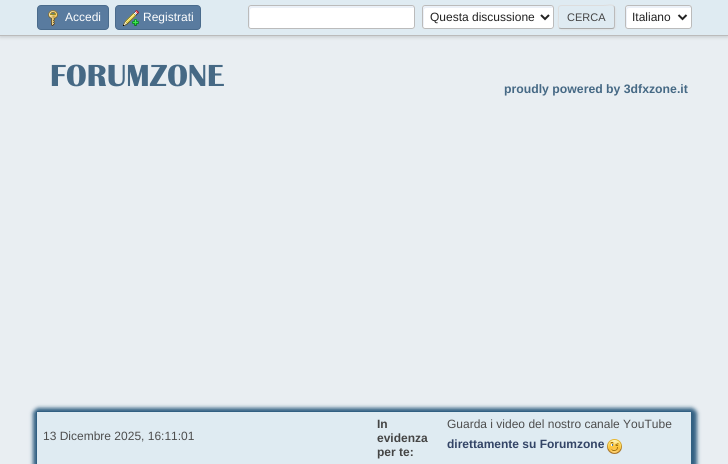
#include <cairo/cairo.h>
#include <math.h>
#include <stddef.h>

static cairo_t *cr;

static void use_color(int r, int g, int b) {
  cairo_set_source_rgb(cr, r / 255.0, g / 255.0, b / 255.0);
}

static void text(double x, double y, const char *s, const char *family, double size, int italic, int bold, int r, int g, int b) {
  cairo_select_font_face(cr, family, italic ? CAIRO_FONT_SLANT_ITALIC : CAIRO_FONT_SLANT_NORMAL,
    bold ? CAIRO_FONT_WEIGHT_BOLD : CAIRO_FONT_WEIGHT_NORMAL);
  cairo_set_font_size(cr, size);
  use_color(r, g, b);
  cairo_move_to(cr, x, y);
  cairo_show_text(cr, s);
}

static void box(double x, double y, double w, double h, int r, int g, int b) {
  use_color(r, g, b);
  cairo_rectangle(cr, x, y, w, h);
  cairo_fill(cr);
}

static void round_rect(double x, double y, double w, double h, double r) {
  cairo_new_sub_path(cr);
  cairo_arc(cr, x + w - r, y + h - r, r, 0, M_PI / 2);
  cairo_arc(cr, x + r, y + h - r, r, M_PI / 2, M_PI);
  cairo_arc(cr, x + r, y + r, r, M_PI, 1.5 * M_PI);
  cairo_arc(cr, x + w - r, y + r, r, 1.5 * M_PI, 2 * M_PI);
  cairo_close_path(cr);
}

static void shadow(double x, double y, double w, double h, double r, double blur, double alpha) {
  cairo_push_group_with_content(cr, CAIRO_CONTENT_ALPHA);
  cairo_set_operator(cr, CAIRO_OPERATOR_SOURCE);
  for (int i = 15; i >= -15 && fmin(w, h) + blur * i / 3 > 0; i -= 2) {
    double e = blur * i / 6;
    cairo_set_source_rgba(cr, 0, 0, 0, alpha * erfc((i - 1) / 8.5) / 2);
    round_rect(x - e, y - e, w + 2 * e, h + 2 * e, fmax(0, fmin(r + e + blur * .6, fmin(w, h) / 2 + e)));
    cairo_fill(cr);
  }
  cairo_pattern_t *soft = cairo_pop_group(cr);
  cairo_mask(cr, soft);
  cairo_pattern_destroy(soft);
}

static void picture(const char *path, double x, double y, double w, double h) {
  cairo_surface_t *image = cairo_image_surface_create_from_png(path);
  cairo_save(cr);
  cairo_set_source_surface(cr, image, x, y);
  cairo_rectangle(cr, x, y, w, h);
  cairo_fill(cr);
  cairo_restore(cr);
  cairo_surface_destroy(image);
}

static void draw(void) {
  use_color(233, 238, 242);
  cairo_paint(cr);
  use_color(0, 0, 0);
  shadow(0, 1, 728, 36, 0, 2, 0.16);
  box(0, 0, 728, 35, 223, 235, 242);
  box(0, 35, 728, 1, 187, 187, 187);
  use_color(89, 123, 159);
  round_rect(37.5, 5.5, 71, 24, 3.5);
  cairo_fill_preserve(cr);
  use_color(74, 107, 140);
  cairo_set_line_width(cr, 1);
  cairo_stroke(cr);
  picture("img_01.png", 48, 10, 10, 16);
  use_color(89, 123, 159);
  round_rect(115.5, 5.5, 85, 24, 3.5);
  cairo_fill_preserve(cr);
  use_color(74, 107, 140);
  cairo_stroke(cr);
  picture("img_02.png", 123, 10, 16, 16);
  use_color(255, 255, 255);
  round_rect(248, 5, 167, 24, 3);
  cairo_fill(cr);
  use_color(236, 241, 248);
  cairo_new_path(cr);
  cairo_move_to(cr, 252, 8);
  cairo_line_to(cr, 414, 8);
  cairo_line_to(cr, 414, 7);
  cairo_line_to(cr, 412, 6);
  cairo_line_to(cr, 251, 6);
  cairo_curve_to(cr, 250, 6, 249, 7, 249, 8);
  cairo_curve_to(cr, 249, 11, 248, 27, 250, 28);
  cairo_line_to(cr, 250, 10);
  cairo_curve_to(cr, 250, 9, 251, 8, 252, 8);
  cairo_close_path(cr);
  cairo_fill(cr);
  round_rect(248.5, 5.5, 166, 23, 2.5);
  use_color(187, 187, 187);
  cairo_stroke(cr);
  use_color(255, 255, 255);
  round_rect(422, 5, 132, 24, 3);
  cairo_fill(cr);
  use_color(236, 241, 248);
  cairo_new_path(cr);
  cairo_move_to(cr, 426, 8);
  cairo_line_to(cr, 553, 8);
  cairo_curve_to(cr, 553, 7, 552, 6, 551, 6);
  cairo_line_to(cr, 425, 6);
  cairo_curve_to(cr, 424, 6, 423, 7, 423, 8);
  cairo_curve_to(cr, 423, 11, 422, 27, 424, 28);
  cairo_line_to(cr, 424, 10);
  cairo_curve_to(cr, 424, 9, 425, 8, 426, 8);
  cairo_close_path(cr);
  cairo_fill(cr);
  round_rect(422.5, 5.5, 131, 23, 2.5);
  use_color(187, 187, 187);
  cairo_stroke(cr);
  cairo_new_path(cr);
  cairo_move_to(cr, 541, 15);
  cairo_line_to(cr, 545, 19);
  cairo_line_to(cr, 549, 15);
  use_color(34, 34, 34);
  cairo_set_line_width(cr, 2);
  cairo_stroke(cr);
  use_color(221, 221, 221);
  shadow(559, 6, 57, 24, 3, 0.5, 0.57);
  use_color(223, 235, 242);
  round_rect(558, 5, 57, 24, 3);
  cairo_fill(cr);
  cairo_new_path(cr);
  cairo_move_to(cr, 614, 6);
  cairo_curve_to(cr, 614, 6.5, 614.5, 7.5, 614.5, 8);
  cairo_line_to(cr, 614.5, 26);
  cairo_curve_to(cr, 614.5, 26.5, 614, 27.5, 614, 28);
  use_color(187, 187, 187);
  cairo_set_line_width(cr, 1);
  cairo_stroke(cr);
  cairo_new_path(cr);
  cairo_move_to(cr, 614, 28);
  cairo_line_to(cr, 612, 28.5);
  cairo_line_to(cr, 561, 28.5);
  cairo_line_to(cr, 559, 28);
  use_color(170, 170, 170);
  cairo_stroke(cr);
  cairo_new_path(cr);
  cairo_move_to(cr, 559, 28);
  cairo_curve_to(cr, 557.5, 26, 558.5, 19, 558.5, 17);
  cairo_curve_to(cr, 558.5, 4, 556.5, 5.5, 569.5, 5.5);
  cairo_line_to(cr, 603.5, 5.5);
  cairo_curve_to(cr, 607, 5.5, 611.5, 4, 614, 6);
  use_color(221, 221, 221);
  cairo_stroke(cr);
  use_color(255, 255, 255);
  round_rect(625, 5, 67, 24, 3);
  cairo_fill(cr);
  use_color(236, 241, 248);
  cairo_new_path(cr);
  cairo_move_to(cr, 629, 8);
  cairo_line_to(cr, 691, 8);
  cairo_curve_to(cr, 691, 7, 691, 7, 690, 6);
  cairo_line_to(cr, 638, 6);
  cairo_curve_to(cr, 629, 6, 626, 3, 626, 11);
  cairo_curve_to(cr, 626, 14, 625, 26, 627, 28);
  cairo_line_to(cr, 627, 10);
  cairo_curve_to(cr, 627, 9, 628, 8, 629, 8);
  cairo_close_path(cr);
  cairo_fill(cr);
  round_rect(625.5, 5.5, 66, 23, 2.5);
  use_color(187, 187, 187);
  cairo_stroke(cr);
  cairo_new_path(cr);
  cairo_move_to(cr, 678.5, 15);
  cairo_line_to(cr, 682.5, 19);
  cairo_line_to(cr, 686.5, 15);
  use_color(34, 34, 34);
  cairo_set_line_width(cr, 2);
  cairo_stroke(cr);
  picture("img_03.png", 51, 64, 173, 23);
  use_color(49, 96, 130);
  shadow(33, 408, 664, 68, 6, 2, 1);
  round_rect(36.5, 411.5, 655, 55, 1.5);
  use_color(49, 96, 130);
  cairo_set_line_width(cr, 1);
  cairo_stroke(cr);
  box(37, 412, 654, 52, 223, 235, 242);
  picture("img_04.png", 607, 439, 15, 15);
  text(65, 21, "Accedi", "Liberation Sans", 12, 0, 0, 255, 255, 255);
  text(143, 21, "Registrati", "Liberation Sans", 12, 0, 0, 255, 255, 255);
  text(430, 21, "Questa discussione", "Liberation Sans", 12, 0, 0, 34, 34, 34);
  text(567, 21, "CERCA", "Liberation Sans", 11, 0, 0, 68, 68, 68);
  text(632, 21, "Italiano", "Liberation Sans", 12, 0, 0, 34, 34, 34);
  text(504, 93, "proudly powered by 3dfxzone.it", "Liberation Sans", 12.25, 0, 1, 70, 105, 133);
  text(43, 440, "13 Dicembre 2025, 16:11:01", "Liberation Sans", 12, 0, 0, 77, 77, 77);
  text(377, 428, "In", "Liberation Sans", 12, 0, 1, 68, 68, 68);
  text(377, 442, "evidenza", "Liberation Sans", 12, 0, 1, 68, 68, 68);
  text(377, 456, "per te:", "Liberation Sans", 12, 0, 1, 68, 68, 68);
  text(447, 428, "Guarda i video del nostro canale YouTube", "Liberation Sans", 12, 0, 0, 77, 77, 77);
  text(447, 448, "direttamente su Forumzone", "Liberation Sans", 12, 0, 1, 51, 68, 102);
}

int main(void) {
  cairo_surface_t *surface = cairo_image_surface_create(CAIRO_FORMAT_RGB24, 728, 464);
  cr = cairo_create(surface);
  cairo_font_options_t *options = cairo_font_options_create();
  cairo_font_options_set_hint_metrics(options, CAIRO_HINT_METRICS_OFF);
  cairo_font_options_set_hint_style(options, CAIRO_HINT_STYLE_NONE);
  cairo_set_font_options(cr, options);
  cairo_set_miter_limit(cr, 4);
  draw();
  cairo_surface_write_to_png(surface, "out.png");
  cairo_font_options_destroy(options);
  cairo_destroy(cr);
  cairo_surface_destroy(surface);
  return 0;
}
